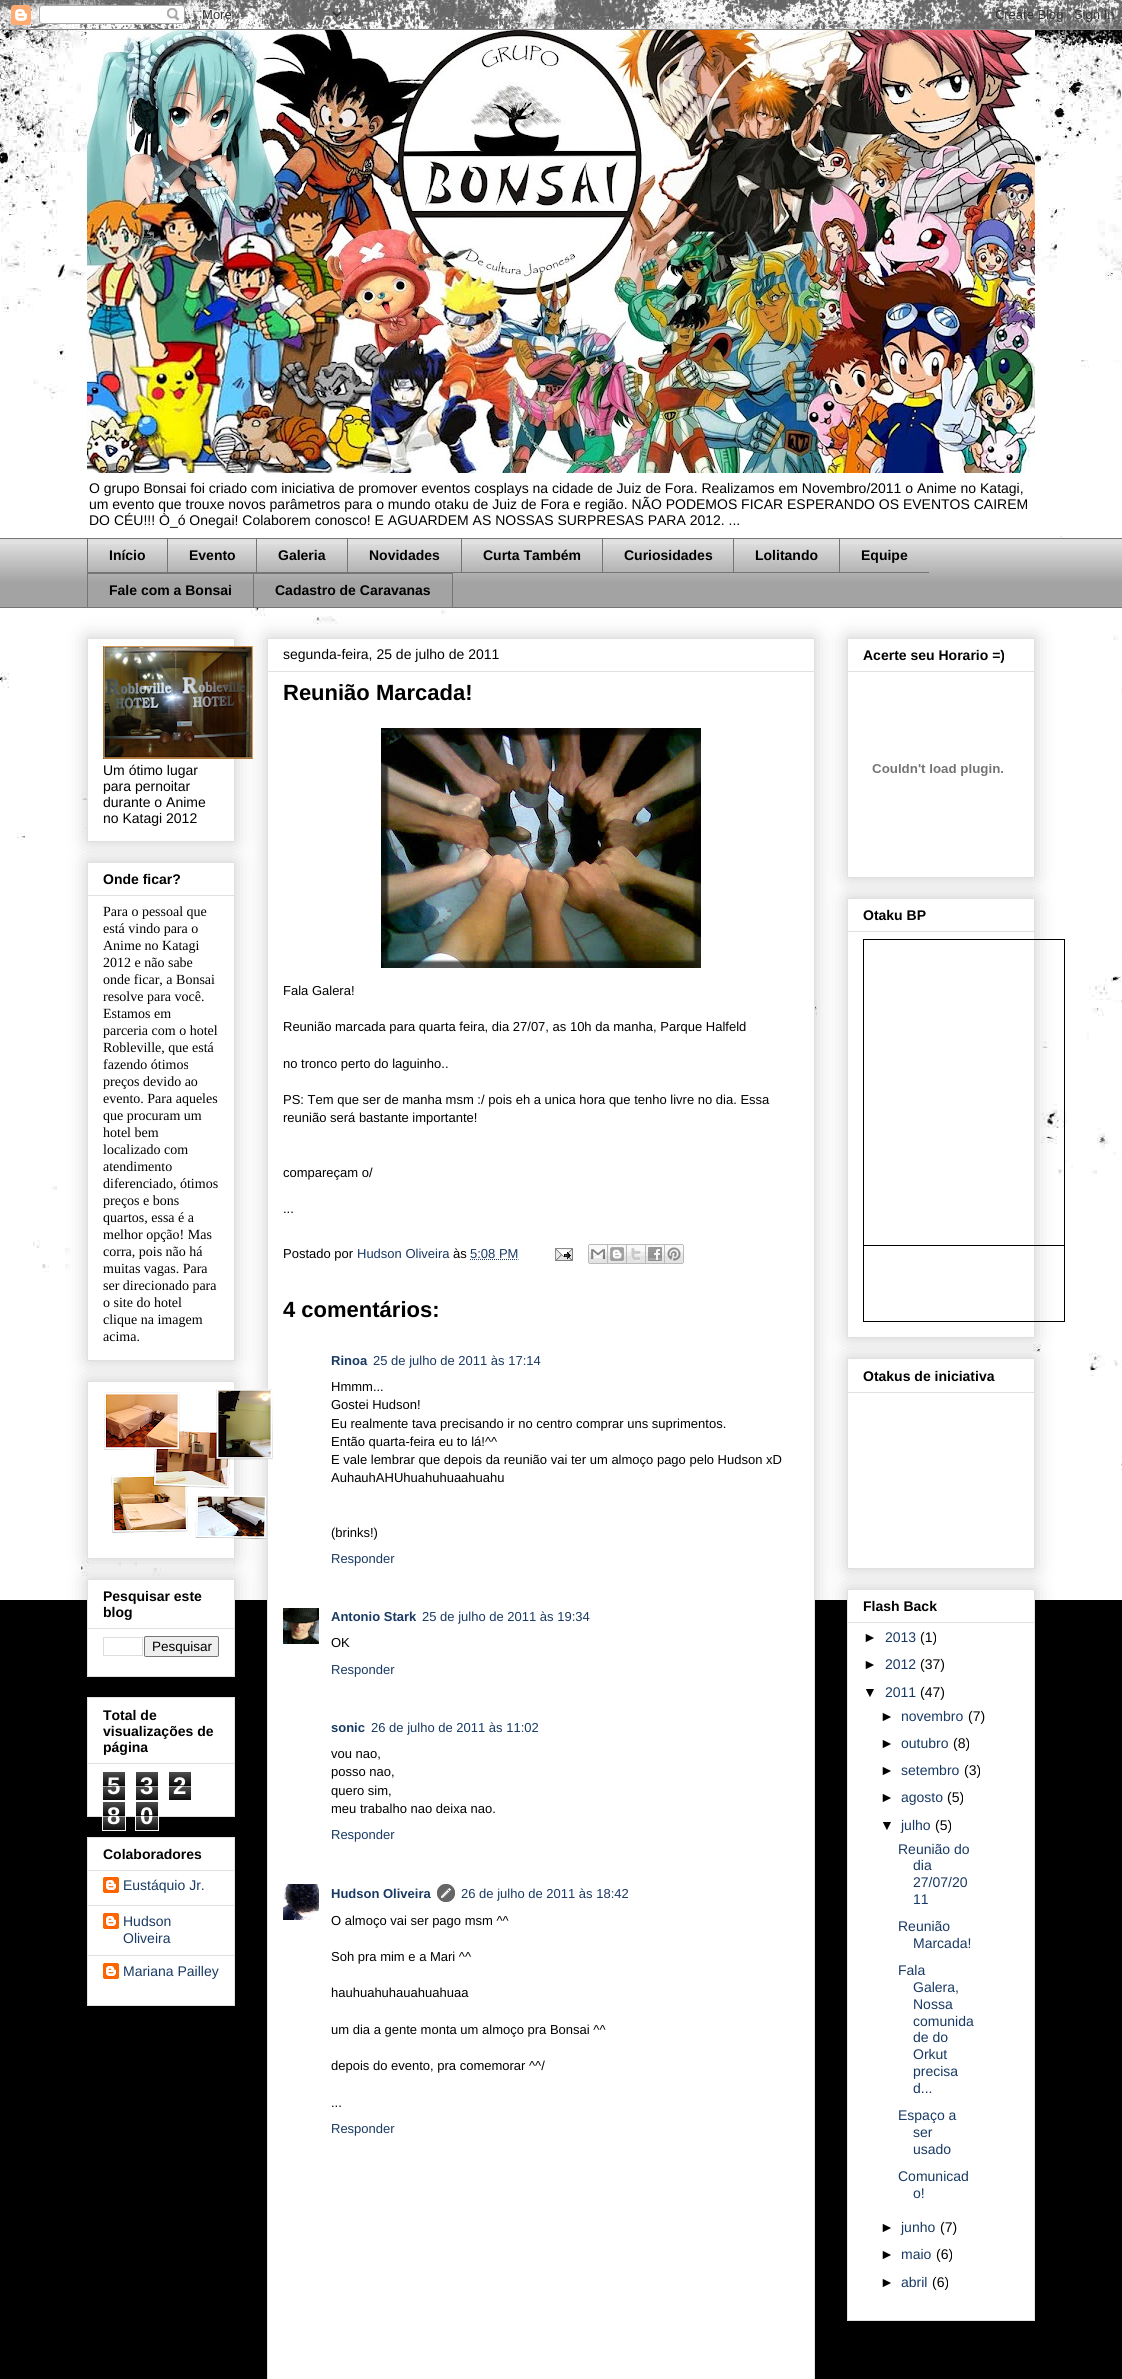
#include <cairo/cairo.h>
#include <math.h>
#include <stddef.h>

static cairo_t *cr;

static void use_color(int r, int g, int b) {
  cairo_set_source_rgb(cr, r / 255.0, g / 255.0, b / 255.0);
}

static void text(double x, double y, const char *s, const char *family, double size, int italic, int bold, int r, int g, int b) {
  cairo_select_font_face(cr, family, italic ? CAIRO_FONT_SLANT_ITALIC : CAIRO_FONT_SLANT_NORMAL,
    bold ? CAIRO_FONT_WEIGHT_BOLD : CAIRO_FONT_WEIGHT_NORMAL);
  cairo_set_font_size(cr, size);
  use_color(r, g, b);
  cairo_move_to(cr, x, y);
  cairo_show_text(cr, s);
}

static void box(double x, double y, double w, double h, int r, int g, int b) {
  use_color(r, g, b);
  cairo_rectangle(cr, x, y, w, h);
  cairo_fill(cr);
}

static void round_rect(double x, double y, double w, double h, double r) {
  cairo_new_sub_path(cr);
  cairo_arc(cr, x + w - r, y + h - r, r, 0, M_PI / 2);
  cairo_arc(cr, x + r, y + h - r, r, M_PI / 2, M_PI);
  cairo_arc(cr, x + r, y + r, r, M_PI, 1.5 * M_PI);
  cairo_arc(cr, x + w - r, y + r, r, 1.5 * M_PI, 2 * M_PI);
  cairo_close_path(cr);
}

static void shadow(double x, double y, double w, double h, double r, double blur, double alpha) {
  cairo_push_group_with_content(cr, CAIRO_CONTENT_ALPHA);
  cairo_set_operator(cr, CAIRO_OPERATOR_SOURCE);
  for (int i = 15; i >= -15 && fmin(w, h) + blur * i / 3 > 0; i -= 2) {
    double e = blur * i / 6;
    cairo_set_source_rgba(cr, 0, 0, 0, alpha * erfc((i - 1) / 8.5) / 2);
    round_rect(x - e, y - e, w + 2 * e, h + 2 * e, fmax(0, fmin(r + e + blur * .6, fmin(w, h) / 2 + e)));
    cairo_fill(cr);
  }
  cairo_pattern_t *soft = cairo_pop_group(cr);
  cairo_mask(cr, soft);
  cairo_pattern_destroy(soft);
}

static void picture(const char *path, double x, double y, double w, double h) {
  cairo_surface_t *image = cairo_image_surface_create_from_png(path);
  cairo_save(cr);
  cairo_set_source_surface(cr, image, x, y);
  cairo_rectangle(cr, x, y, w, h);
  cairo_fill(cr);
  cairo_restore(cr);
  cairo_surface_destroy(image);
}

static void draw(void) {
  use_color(0, 0, 0);
  cairo_paint(cr);
  picture("img_01.png", 0, 0, 1122, 1600);
  picture("img_02.png", 0, 0, 1122, 30);
  picture("img_03.png", 87, 30, 948, 443);
  box(0, 539, 1122, 68, 225, 225, 225);
  picture("img_04.png", 0, 544, 1122, 63);
  box(0, 538, 1122, 1, 117, 117, 117);
  box(87, 572, 842, 1, 117, 117, 117);
  box(87, 538, 1, 35, 117, 117, 117);
  box(167, 538, 1, 35, 117, 117, 117);
  box(256, 538, 1, 35, 117, 117, 117);
  box(347, 538, 1, 35, 117, 117, 117);
  box(461, 538, 1, 35, 117, 117, 117);
  box(602, 538, 1, 35, 117, 117, 117);
  box(733, 538, 1, 35, 117, 117, 117);
  box(839, 538, 1, 35, 117, 117, 117);
  box(87, 573, 166, 1, 117, 117, 117);
  box(87, 573, 1, 35, 117, 117, 117);
  cairo_rectangle(cr, 253.5, 573.5, 199, 34);
  cairo_set_line_width(cr, 1);
  cairo_stroke(cr);
  box(0, 607, 1122, 1, 117, 117, 117);
  use_color(0, 0, 0);
  shadow(87, 638, 148, 204, 0, 10, 0.2);
  use_color(255, 255, 255);
  cairo_rectangle(cr, 87.5, 638.5, 147, 203);
  cairo_fill_preserve(cr);
  use_color(225, 225, 225);
  cairo_stroke(cr);
  use_color(0, 0, 0);
  shadow(267, 638, 548, 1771, 0, 10, 0.2);
  picture("img_05.png", 103, 646, 150, 113);
  shadow(87, 862, 148, 499, 0, 10, 0.2);
  use_color(255, 255, 255);
  cairo_rectangle(cr, 87.5, 862.5, 147, 498);
  cairo_fill_preserve(cr);
  use_color(225, 225, 225);
  cairo_stroke(cr);
  box(88, 895, 146, 1, 225, 225, 225);
  cairo_save(cr);
  cairo_set_fill_rule(cr, CAIRO_FILL_RULE_EVEN_ODD);
  cairo_new_path(cr);
  cairo_move_to(cr, 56, 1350);
  cairo_line_to(cr, 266, 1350);
  cairo_line_to(cr, 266, 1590);
  cairo_line_to(cr, 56, 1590);
  cairo_close_path(cr);
  cairo_move_to(cr, 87, 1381);
  cairo_line_to(cr, 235, 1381);
  cairo_line_to(cr, 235, 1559);
  cairo_line_to(cr, 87, 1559);
  cairo_close_path(cr);
  cairo_clip(cr);
  use_color(0, 0, 0);
  shadow(87, 1381, 148, 178, 0, 10, 0.2);
  cairo_restore(cr);
  cairo_rectangle(cr, 87.5, 1381.5, 147, 177);
  cairo_stroke(cr);
  use_color(255, 255, 255);
  cairo_rectangle(cr, 267.5, 638.5, 547, 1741);
  cairo_fill_preserve(cr);
  use_color(225, 225, 225);
  cairo_stroke(cr);
  picture("img_06.png", 104, 1389, 169, 150);
  use_color(0, 0, 0);
  shadow(87, 1579, 148, 98, 0, 10, 0.2);
  use_color(255, 255, 255);
  cairo_rectangle(cr, 87.5, 1579.5, 147, 97);
  cairo_fill_preserve(cr);
  use_color(225, 225, 225);
  cairo_stroke(cr);
  box(88, 1628, 146, 1, 225, 225, 225);
  cairo_rectangle(cr, 103.5, 1637.5, 39, 18);
  use_color(221, 221, 221);
  cairo_stroke(cr);
  use_color(239, 239, 239);
  round_rect(144.5, 1636.5, 74, 20, 1.5);
  cairo_fill_preserve(cr);
  use_color(118, 118, 118);
  cairo_stroke(cr);
  use_color(255, 255, 255);
  cairo_rectangle(cr, 87.5, 1697.5, 147, 119);
  cairo_fill_preserve(cr);
  use_color(225, 225, 225);
  cairo_stroke(cr);
  box(88, 1763, 146, 1, 225, 225, 225);
  picture("img_07.png", 103, 1772, 22, 28);
  picture("img_07.png", 136, 1772, 22, 28);
  picture("img_07.png", 169, 1772, 22, 28);
  picture("img_07.png", 103, 1802, 22, 28);
  cairo_rectangle(cr, 102.5, 1801.5, 23, 29);
  use_color(255, 255, 255);
  cairo_stroke(cr);
  picture("img_07.png", 136, 1802, 22, 28);
  cairo_rectangle(cr, 135.5, 1801.5, 23, 29);
  cairo_stroke(cr);
  box(268, 671, 546, 1, 225, 225, 225);
  picture("img_09.png", 381, 728, 320, 240);
  cairo_new_path(cr);
  cairo_move_to(cr, 470, 1259.5);
  cairo_line_to(cr, 518.5, 1259.5);
  use_color(24, 57, 99);
  cairo_set_dash(cr, (double[]){1, 1}, 2, 0);
  cairo_stroke(cr);
  picture("img_10.png", 555, 1248, 18, 13);
  picture("img_11.png", 588, 1244, 20, 20);
  picture("img_12.png", 608, 1244, 19, 20);
  picture("img_13.png", 627, 1244, 19, 20);
  picture("img_14.png", 646, 1244, 19, 20);
  picture("img_15.png", 665, 1244, 19, 20);
  picture("img_16.png", 283, 1608, 36, 36);
  picture("img_17.png", 283, 1884, 36, 36);
  picture("img_18.png", 437, 1884, 18, 18);
  cairo_save(cr);
  cairo_set_fill_rule(cr, CAIRO_FILL_RULE_EVEN_ODD);
  cairo_new_path(cr);
  cairo_move_to(cr, 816, 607);
  cairo_line_to(cr, 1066, 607);
  cairo_line_to(cr, 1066, 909);
  cairo_line_to(cr, 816, 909);
  cairo_close_path(cr);
  cairo_move_to(cr, 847, 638);
  cairo_line_to(cr, 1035, 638);
  cairo_line_to(cr, 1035, 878);
  cairo_line_to(cr, 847, 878);
  cairo_close_path(cr);
  cairo_clip(cr);
  use_color(0, 0, 0);
  shadow(847, 638, 188, 240, 0, 10, 0.2);
  cairo_restore(cr);
  cairo_rectangle(cr, 847.5, 638.5, 187, 239);
  use_color(225, 225, 225);
  cairo_set_dash(cr, NULL, 0, 0);
  cairo_stroke(cr);
  box(848, 671, 186, 1, 225, 225, 225);
  picture("img_19.png", 872, 764, 131, 12);
  use_color(0, 0, 0);
  shadow(847, 898, 188, 440, 0, 10, 0.2);
  use_color(255, 255, 255);
  cairo_rectangle(cr, 847.5, 898.5, 187, 439);
  cairo_fill_preserve(cr);
  use_color(225, 225, 225);
  cairo_stroke(cr);
  box(848, 931, 186, 1, 225, 225, 225);
  cairo_rectangle(cr, 863.5, 939.5, 201, 306);
  use_color(0, 0, 0);
  cairo_stroke(cr);
  box(1064, 1246, 1, 76, 0, 0, 0);
  box(863, 1321, 202, 1, 0, 0, 0);
  box(863, 1246, 1, 76, 0, 0, 0);
  cairo_save(cr);
  cairo_set_fill_rule(cr, CAIRO_FILL_RULE_EVEN_ODD);
  cairo_new_path(cr);
  cairo_move_to(cr, 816, 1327);
  cairo_line_to(cr, 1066, 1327);
  cairo_line_to(cr, 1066, 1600);
  cairo_line_to(cr, 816, 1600);
  cairo_close_path(cr);
  cairo_move_to(cr, 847, 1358);
  cairo_line_to(cr, 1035, 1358);
  cairo_line_to(cr, 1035, 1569);
  cairo_line_to(cr, 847, 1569);
  cairo_close_path(cr);
  cairo_clip(cr);
  use_color(0, 0, 0);
  shadow(847, 1358, 188, 211, 0, 10, 0.2);
  cairo_restore(cr);
  cairo_rectangle(cr, 847.5, 1358.5, 187, 210);
  use_color(225, 225, 225);
  cairo_stroke(cr);
  box(848, 1392, 186, 1, 225, 225, 225);
  use_color(0, 0, 0);
  shadow(847, 1589, 188, 732, 0, 10, 0.2);
  use_color(255, 255, 255);
  cairo_rectangle(cr, 847.5, 1589.5, 187, 731);
  cairo_fill_preserve(cr);
  use_color(225, 225, 225);
  cairo_stroke(cr);
  box(848, 1622, 186, 1, 225, 225, 225);
  text(89, 493, "O grupo Bonsai foi criado com iniciativa de promover eventos cosplays na cidade de Juiz de Fora. Realizamos em Novembro/2011 o Anime no Katagi,", "Liberation Sans", 14, 0, 0, 0, 0, 0);
  text(89, 509, "um evento que trouxe novos parâmetros para o mundo otaku de Juiz de Fora e região. NÃO PODEMOS FICAR ESPERANDO OS EVENTOS CAIREM", "Liberation Sans", 14, 0, 0, 0, 0, 0);
  text(89, 525, "DO CÉU!!! Ò_ó Onegai! Colaborem conosco! E AGUARDEM AS NOSSAS SURPRESAS PARA 2012. ...", "Liberation Sans", 14, 0, 0, 0, 0, 0);
  text(109, 560, "Início", "Liberation Sans", 14, 0, 1, 0, 0, 0);
  text(189, 560, "Evento", "Liberation Sans", 14, 0, 1, 0, 0, 0);
  text(278, 560, "Galeria", "Liberation Sans", 14, 0, 1, 0, 0, 0);
  text(369, 560, "Novidades", "Liberation Sans", 14, 0, 1, 0, 0, 0);
  text(483, 560, "Curta Também", "Liberation Sans", 14, 0, 1, 0, 0, 0);
  text(624, 560, "Curiosidades", "Liberation Sans", 14, 0, 1, 0, 0, 0);
  text(755, 560, "Lolitando", "Liberation Sans", 14, 0, 1, 0, 0, 0);
  text(861, 560, "Equipe", "Liberation Sans", 14, 0, 1, 0, 0, 0);
  text(109, 595, "Fale com a Bonsai", "Liberation Sans", 14, 0, 1, 0, 0, 0);
  text(275, 595, "Cadastro de Caravanas", "Liberation Sans", 14, 0, 1, 0, 0, 0);
  text(103, 775, "Um ótimo lugar", "Liberation Sans", 14, 0, 0, 0, 0, 0);
  text(103, 791, "para pernoitar", "Liberation Sans", 14, 0, 0, 0, 0, 0);
  text(103, 807, "durante o Anime", "Liberation Sans", 14, 0, 0, 0, 0, 0);
  text(103, 823, "no Katagi 2012", "Liberation Sans", 14, 0, 0, 0, 0, 0);
  text(103, 884, "Onde ficar?", "Liberation Sans", 14, 0, 1, 0, 0, 0);
  text(103, 916, "Para o pessoal que", "Liberation Serif", 14, 0, 0, 0, 0, 0);
  text(103, 933, "está vindo para o", "Liberation Serif", 14, 0, 0, 0, 0, 0);
  text(103, 950, "Anime no Katagi", "Liberation Serif", 14, 0, 0, 0, 0, 0);
  text(103, 967, "2012 e não sabe", "Liberation Serif", 14, 0, 0, 0, 0, 0);
  text(103, 984, "onde ficar, a Bonsai", "Liberation Serif", 14, 0, 0, 0, 0, 0);
  text(103, 1001, "resolve para você.", "Liberation Serif", 14, 0, 0, 0, 0, 0);
  text(103, 1018, "Estamos em", "Liberation Serif", 14, 0, 0, 0, 0, 0);
  text(103, 1035, "parceria com o hotel", "Liberation Serif", 14, 0, 0, 0, 0, 0);
  text(103, 1052, "Robleville, que está", "Liberation Serif", 14, 0, 0, 0, 0, 0);
  text(103, 1069, "fazendo ótimos", "Liberation Serif", 14, 0, 0, 0, 0, 0);
  text(103, 1086, "preços devido ao", "Liberation Serif", 14, 0, 0, 0, 0, 0);
  text(103, 1103, "evento. Para aqueles", "Liberation Serif", 14, 0, 0, 0, 0, 0);
  text(103, 1120, "que procuram um", "Liberation Serif", 14, 0, 0, 0, 0, 0);
  text(103, 1137, "hotel bem", "Liberation Serif", 14, 0, 0, 0, 0, 0);
  text(103, 1154, "localizado com", "Liberation Serif", 14, 0, 0, 0, 0, 0);
  text(103, 1171, "atendimento", "Liberation Serif", 14, 0, 0, 0, 0, 0);
  text(103, 1188, "diferenciado, ótimos", "Liberation Serif", 14, 0, 0, 0, 0, 0);
  text(103, 1205, "preços e bons", "Liberation Serif", 14, 0, 0, 0, 0, 0);
  text(103, 1222, "quartos, essa é a", "Liberation Serif", 14, 0, 0, 0, 0, 0);
  text(103, 1239, "melhor opção! Mas", "Liberation Serif", 14, 0, 0, 0, 0, 0);
  text(103, 1256, "corra, pois não há", "Liberation Serif", 14, 0, 0, 0, 0, 0);
  text(103, 1273, "muitas vagas. Para", "Liberation Serif", 14, 0, 0, 0, 0, 0);
  text(103, 1290, "ser direcionado para", "Liberation Serif", 14, 0, 0, 0, 0, 0);
  text(103, 1307, "o site do hotel", "Liberation Serif", 14, 0, 0, 0, 0, 0);
  text(103, 1324, "clique na imagem", "Liberation Serif", 14, 0, 0, 0, 0, 0);
  text(103, 1341, "acima.", "Liberation Serif", 14, 0, 0, 0, 0, 0);
  text(103, 1601, "Pesquisar este", "Liberation Sans", 14, 0, 1, 0, 0, 0);
  text(103, 1617, "blog", "Liberation Sans", 14, 0, 1, 0, 0, 0);
  text(152, 1651, "Pesquisar", "Liberation Sans", 13.5, 0, 0, 0, 0, 0);
  text(103, 1720, "Total de", "Liberation Sans", 14, 0, 1, 0, 0, 0);
  text(103, 1736, "visualizações de", "Liberation Sans", 14, 0, 1, 0, 0, 0);
  text(103, 1752, "página", "Liberation Sans", 14, 0, 1, 0, 0, 0);
  text(107, 1794, "5", "Liberation Sans", 24, 0, 1, 255, 255, 255);
  cairo_set_source_rgba(cr, 0, 0, 0, 0.65);
  cairo_rectangle(cr, 103, 1785, 22, 1);
  cairo_fill(cr);
  cairo_set_source_rgba(cr, 1, 1, 1, 0.65);
  cairo_rectangle(cr, 103, 1786, 22, 1);
  cairo_fill(cr);
  text(140, 1794, "3", "Liberation Sans", 24, 0, 1, 255, 255, 255);
  cairo_set_source_rgba(cr, 0, 0, 0, 0.65);
  cairo_rectangle(cr, 136, 1785, 22, 1);
  cairo_fill(cr);
  cairo_set_source_rgba(cr, 1, 1, 1, 0.65);
  cairo_rectangle(cr, 136, 1786, 22, 1);
  cairo_fill(cr);
  text(173, 1794, "2", "Liberation Sans", 24, 0, 1, 255, 255, 255);
  cairo_set_source_rgba(cr, 0, 0, 0, 0.65);
  cairo_rectangle(cr, 169, 1785, 22, 1);
  cairo_fill(cr);
  cairo_set_source_rgba(cr, 1, 1, 1, 0.65);
  cairo_rectangle(cr, 169, 1786, 22, 1);
  cairo_fill(cr);
  text(107, 1824, "8", "Liberation Sans", 24, 0, 1, 255, 255, 255);
  cairo_set_source_rgba(cr, 0, 0, 0, 0.65);
  cairo_rectangle(cr, 103, 1815, 22, 1);
  cairo_fill(cr);
  cairo_set_source_rgba(cr, 1, 1, 1, 0.65);
  cairo_rectangle(cr, 103, 1816, 22, 1);
  cairo_fill(cr);
  text(140, 1824, "0", "Liberation Sans", 24, 0, 1, 255, 255, 255);
  cairo_set_source_rgba(cr, 0, 0, 0, 0.65);
  cairo_rectangle(cr, 136, 1815, 22, 1);
  cairo_fill(cr);
  cairo_set_source_rgba(cr, 1, 1, 1, 0.65);
  cairo_rectangle(cr, 136, 1816, 22, 1);
  cairo_fill(cr);
  use_color(0, 0, 0);
  shadow(87, 1837, 148, 169, 0, 10, 0.2);
  use_color(255, 255, 255);
  cairo_rectangle(cr, 87.5, 1837.5, 147, 168);
  cairo_fill_preserve(cr);
  use_color(225, 225, 225);
  cairo_stroke(cr);
  text(103, 1859, "Colaboradores", "Liberation Sans", 14, 0, 1, 0, 0, 0);
  box(88, 1870, 146, 1, 225, 225, 225);
  picture("img_08.png", 103, 1877, 16, 16);
  text(123, 1890, "Eustáquio Jr.", "Liberation Sans", 14, 0, 0, 24, 57, 99);
  box(88, 1905, 146, 1, 225, 225, 225);
  picture("img_08.png", 103, 1913, 16, 16);
  text(123, 1926, "Hudson", "Liberation Sans", 14, 0, 0, 24, 57, 99);
  text(123, 1943, "Oliveira", "Liberation Sans", 14, 0, 0, 24, 57, 99);
  box(88, 1955, 146, 1, 225, 225, 225);
  picture("img_08.png", 103, 1963, 16, 16);
  text(123, 1976, "Mariana Pailley", "Liberation Sans", 14, 0, 0, 24, 57, 99);
  text(283, 659, "segunda-feira, 25 de julho de 2011", "Liberation Sans", 14, 0, 0, 0, 0, 0);
  text(283, 700, "Reunião Marcada!", "Liberation Sans", 22, 0, 1, 0, 0, 0);
  text(283, 995, "Fala Galera!", "Liberation Sans", 13, 0, 0, 0, 0, 0);
  text(283, 1031, "Reunião marcada para quarta feira, dia 27/07, as 10h da manha, Parque Halfeld", "Liberation Sans", 13, 0, 0, 0, 0, 0);
  text(283, 1068, "no tronco perto do laguinho..", "Liberation Sans", 13, 0, 0, 0, 0, 0);
  text(283, 1104, "PS: Tem que ser de manha msm :/ pois eh a unica hora que tenho livre no dia. Essa", "Liberation Sans", 13, 0, 0, 0, 0, 0);
  text(283, 1122, "reunião será bastante importante!", "Liberation Sans", 13, 0, 0, 0, 0, 0);
  text(283, 1177, "compareçam o/", "Liberation Sans", 13, 0, 0, 0, 0, 0);
  text(283, 1213, "...", "Liberation Sans", 13, 0, 0, 0, 0, 0);
  text(283, 1258, "Postado por", "Liberation Sans", 13, 0, 0, 0, 0, 0);
  text(357, 1258, "Hudson Oliveira", "Liberation Sans", 13, 0, 0, 24, 57, 99);
  text(453, 1258, "às", "Liberation Sans", 13, 0, 0, 0, 0, 0);
  text(470, 1258, "5:08 PM", "Liberation Sans", 13, 0, 0, 24, 57, 99);
  text(283, 1317, "4 comentários:", "Liberation Sans", 22, 0, 1, 0, 0, 0);
  text(331, 1365, "Rinoa", "Liberation Sans", 13, 0, 1, 24, 57, 99);
  text(373, 1365, "25 de julho de 2011 às 17:14", "Liberation Sans", 13, 0, 0, 24, 57, 99);
  text(331, 1391, "Hmmm...", "Liberation Sans", 13, 0, 0, 0, 0, 0);
  text(331, 1409, "Gostei Hudson!", "Liberation Sans", 13, 0, 0, 0, 0, 0);
  text(331, 1428, "Eu realmente tava precisando ir no centro comprar uns suprimentos.", "Liberation Sans", 13, 0, 0, 0, 0, 0);
  text(331, 1446, "Então quarta-feira eu to lá!^^", "Liberation Sans", 13, 0, 0, 0, 0, 0);
  text(331, 1464, "E vale lembrar que depois da reunião vai ter um almoço pago pelo Hudson xD", "Liberation Sans", 13, 0, 0, 0, 0, 0);
  text(331, 1482, "AuhauhAHUhuahuhuaahuahu", "Liberation Sans", 13, 0, 0, 0, 0, 0);
  text(331, 1537, "(brinks!)", "Liberation Sans", 13, 0, 0, 0, 0, 0);
  text(331, 1563, "Responder", "Liberation Sans", 13, 0, 0, 24, 57, 99);
  text(331, 1621, "Antonio Stark", "Liberation Sans", 13, 0, 1, 24, 57, 99);
  text(422, 1621, "25 de julho de 2011 às 19:34", "Liberation Sans", 13, 0, 0, 24, 57, 99);
  text(331, 1647, "OK", "Liberation Sans", 13, 0, 0, 0, 0, 0);
  text(331, 1674, "Responder", "Liberation Sans", 13, 0, 0, 24, 57, 99);
  text(331, 1732, "sonic", "Liberation Sans", 13, 0, 1, 24, 57, 99);
  text(371, 1732, "26 de julho de 2011 às 11:02", "Liberation Sans", 13, 0, 0, 24, 57, 99);
  text(331, 1758, "vou nao,", "Liberation Sans", 13, 0, 0, 0, 0, 0);
  text(331, 1776, "posso nao,", "Liberation Sans", 13, 0, 0, 0, 0, 0);
  text(331, 1795, "quero sim,", "Liberation Sans", 13, 0, 0, 0, 0, 0);
  text(331, 1813, "meu trabalho nao deixa nao.", "Liberation Sans", 13, 0, 0, 0, 0, 0);
  text(331, 1839, "Responder", "Liberation Sans", 13, 0, 0, 24, 57, 99);
  text(331, 1898, "Hudson Oliveira", "Liberation Sans", 13, 0, 1, 24, 57, 99);
  text(461, 1898, "26 de julho de 2011 às 18:42", "Liberation Sans", 13, 0, 0, 24, 57, 99);
  text(331, 1925, "O almoço vai ser pago msm ^^", "Liberation Sans", 13, 0, 0, 0, 0, 0);
  text(331, 1961, "Soh pra mim e a Mari ^^", "Liberation Sans", 13, 0, 0, 0, 0, 0);
  text(331, 1997, "hauhuahuhauahuahuaa", "Liberation Sans", 13, 0, 0, 0, 0, 0);
  text(331, 2034, "um dia a gente monta um almoço pra Bonsai ^^", "Liberation Sans", 13, 0, 0, 0, 0, 0);
  text(331, 2070, "depois do evento, pra comemorar ^^/", "Liberation Sans", 13, 0, 0, 0, 0, 0);
  text(331, 2107, "...", "Liberation Sans", 13, 0, 0, 0, 0, 0);
  text(331, 2133, "Responder", "Liberation Sans", 13, 0, 0, 24, 57, 99);
  text(863, 660, "Acerte seu Horario =)", "Liberation Sans", 14, 0, 1, 0, 0, 0);
  text(863, 920, "Otaku BP", "Liberation Sans", 14, 0, 1, 0, 0, 0);
  text(863, 1381, "Otakus de iniciativa", "Liberation Sans", 14, 0, 1, 0, 0, 0);
  text(863, 1611, "Flash Back", "Liberation Sans", 14, 0, 1, 0, 0, 0);
  text(863, 1642, "►", "Liberation Sans", 14, 0, 0, 0, 0, 0);
  text(885, 1642, "2013", "Liberation Sans", 14, 0, 0, 24, 57, 99);
  text(920, 1642, "(1)", "Liberation Sans", 14, 0, 0, 0, 0, 0);
  text(863, 1669, "►", "Liberation Sans", 14, 0, 0, 0, 0, 0);
  text(885, 1669, "2012", "Liberation Sans", 14, 0, 0, 24, 57, 99);
  text(920, 1669, "(37)", "Liberation Sans", 14, 0, 0, 0, 0, 0);
  text(863, 1697, "▼", "Liberation Sans", 14, 0, 0, 0, 0, 0);
  text(885, 1697, "2011", "Liberation Sans", 14, 0, 0, 24, 57, 99);
  text(920, 1697, "(47)", "Liberation Sans", 14, 0, 0, 0, 0, 0);
  text(880, 1721, "►", "Liberation Sans", 14, 0, 0, 0, 0, 0);
  text(901, 1721, "novembro", "Liberation Sans", 14, 0, 0, 24, 57, 99);
  text(968, 1721, "(7)", "Liberation Sans", 14, 0, 0, 0, 0, 0);
  text(880, 1748, "►", "Liberation Sans", 14, 0, 0, 0, 0, 0);
  text(901, 1748, "outubro", "Liberation Sans", 14, 0, 0, 24, 57, 99);
  text(953, 1748, "(8)", "Liberation Sans", 14, 0, 0, 0, 0, 0);
  text(880, 1775, "►", "Liberation Sans", 14, 0, 0, 0, 0, 0);
  text(901, 1775, "setembro", "Liberation Sans", 14, 0, 0, 24, 57, 99);
  text(964, 1775, "(3)", "Liberation Sans", 14, 0, 0, 0, 0, 0);
  text(880, 1802, "►", "Liberation Sans", 14, 0, 0, 0, 0, 0);
  text(901, 1802, "agosto", "Liberation Sans", 14, 0, 0, 24, 57, 99);
  text(947, 1802, "(5)", "Liberation Sans", 14, 0, 0, 0, 0, 0);
  text(880, 1830, "▼", "Liberation Sans", 14, 0, 0, 0, 0, 0);
  text(901, 1830, "julho", "Liberation Sans", 14, 0, 0, 24, 57, 99);
  text(935, 1830, "(5)", "Liberation Sans", 14, 0, 0, 0, 0, 0);
  text(898, 1854, "Reunião do", "Liberation Sans", 14, 0, 0, 24, 57, 99);
  text(913, 1870, "dia", "Liberation Sans", 14, 0, 0, 24, 57, 99);
  text(913, 1887, "27/07/20", "Liberation Sans", 14, 0, 0, 24, 57, 99);
  text(913, 1904, "11", "Liberation Sans", 14, 0, 0, 24, 57, 99);
  text(898, 1931, "Reunião", "Liberation Sans", 14, 0, 0, 24, 57, 99);
  text(913, 1948, "Marcada!", "Liberation Sans", 14, 0, 0, 24, 57, 99);
  text(898, 1975, "Fala", "Liberation Sans", 14, 0, 0, 24, 57, 99);
  text(913, 1992, "Galera,", "Liberation Sans", 14, 0, 0, 24, 57, 99);
  text(913, 2009, "Nossa", "Liberation Sans", 14, 0, 0, 24, 57, 99);
  text(913, 2026, "comunida", "Liberation Sans", 14, 0, 0, 24, 57, 99);
  text(913, 2042, "de do", "Liberation Sans", 14, 0, 0, 24, 57, 99);
  text(913, 2059, "Orkut", "Liberation Sans", 14, 0, 0, 24, 57, 99);
  text(913, 2076, "precisa", "Liberation Sans", 14, 0, 0, 24, 57, 99);
  text(913, 2093, "d...", "Liberation Sans", 14, 0, 0, 24, 57, 99);
  text(898, 2120, "Espaço a", "Liberation Sans", 14, 0, 0, 24, 57, 99);
  text(913, 2137, "ser", "Liberation Sans", 14, 0, 0, 24, 57, 99);
  text(913, 2154, "usado", "Liberation Sans", 14, 0, 0, 24, 57, 99);
  text(898, 2181, "Comunicad", "Liberation Sans", 14, 0, 0, 24, 57, 99);
  text(913, 2198, "o!", "Liberation Sans", 14, 0, 0, 24, 57, 99);
  text(880, 2232, "►", "Liberation Sans", 14, 0, 0, 0, 0, 0);
  text(901, 2232, "junho", "Liberation Sans", 14, 0, 0, 24, 57, 99);
  text(940, 2232, "(7)", "Liberation Sans", 14, 0, 0, 0, 0, 0);
  text(880, 2259, "►", "Liberation Sans", 14, 0, 0, 0, 0, 0);
  text(901, 2259, "maio", "Liberation Sans", 14, 0, 0, 24, 57, 99);
  text(936, 2259, "(6)", "Liberation Sans", 14, 0, 0, 0, 0, 0);
  text(880, 2287, "►", "Liberation Sans", 14, 0, 0, 0, 0, 0);
  text(901, 2287, "abril", "Liberation Sans", 14, 0, 0, 24, 57, 99);
  text(932, 2287, "(6)", "Liberation Sans", 14, 0, 0, 0, 0, 0);
}

int main(void) {
  cairo_surface_t *surface = cairo_image_surface_create(CAIRO_FORMAT_RGB24, 1122, 2379);
  cr = cairo_create(surface);
  cairo_font_options_t *options = cairo_font_options_create();
  cairo_font_options_set_hint_metrics(options, CAIRO_HINT_METRICS_OFF);
  cairo_font_options_set_hint_style(options, CAIRO_HINT_STYLE_NONE);
  cairo_set_font_options(cr, options);
  cairo_set_miter_limit(cr, 4);
  draw();
  cairo_surface_write_to_png(surface, "out.png");
  cairo_font_options_destroy(options);
  cairo_destroy(cr);
  cairo_surface_destroy(surface);
  return 0;
}
